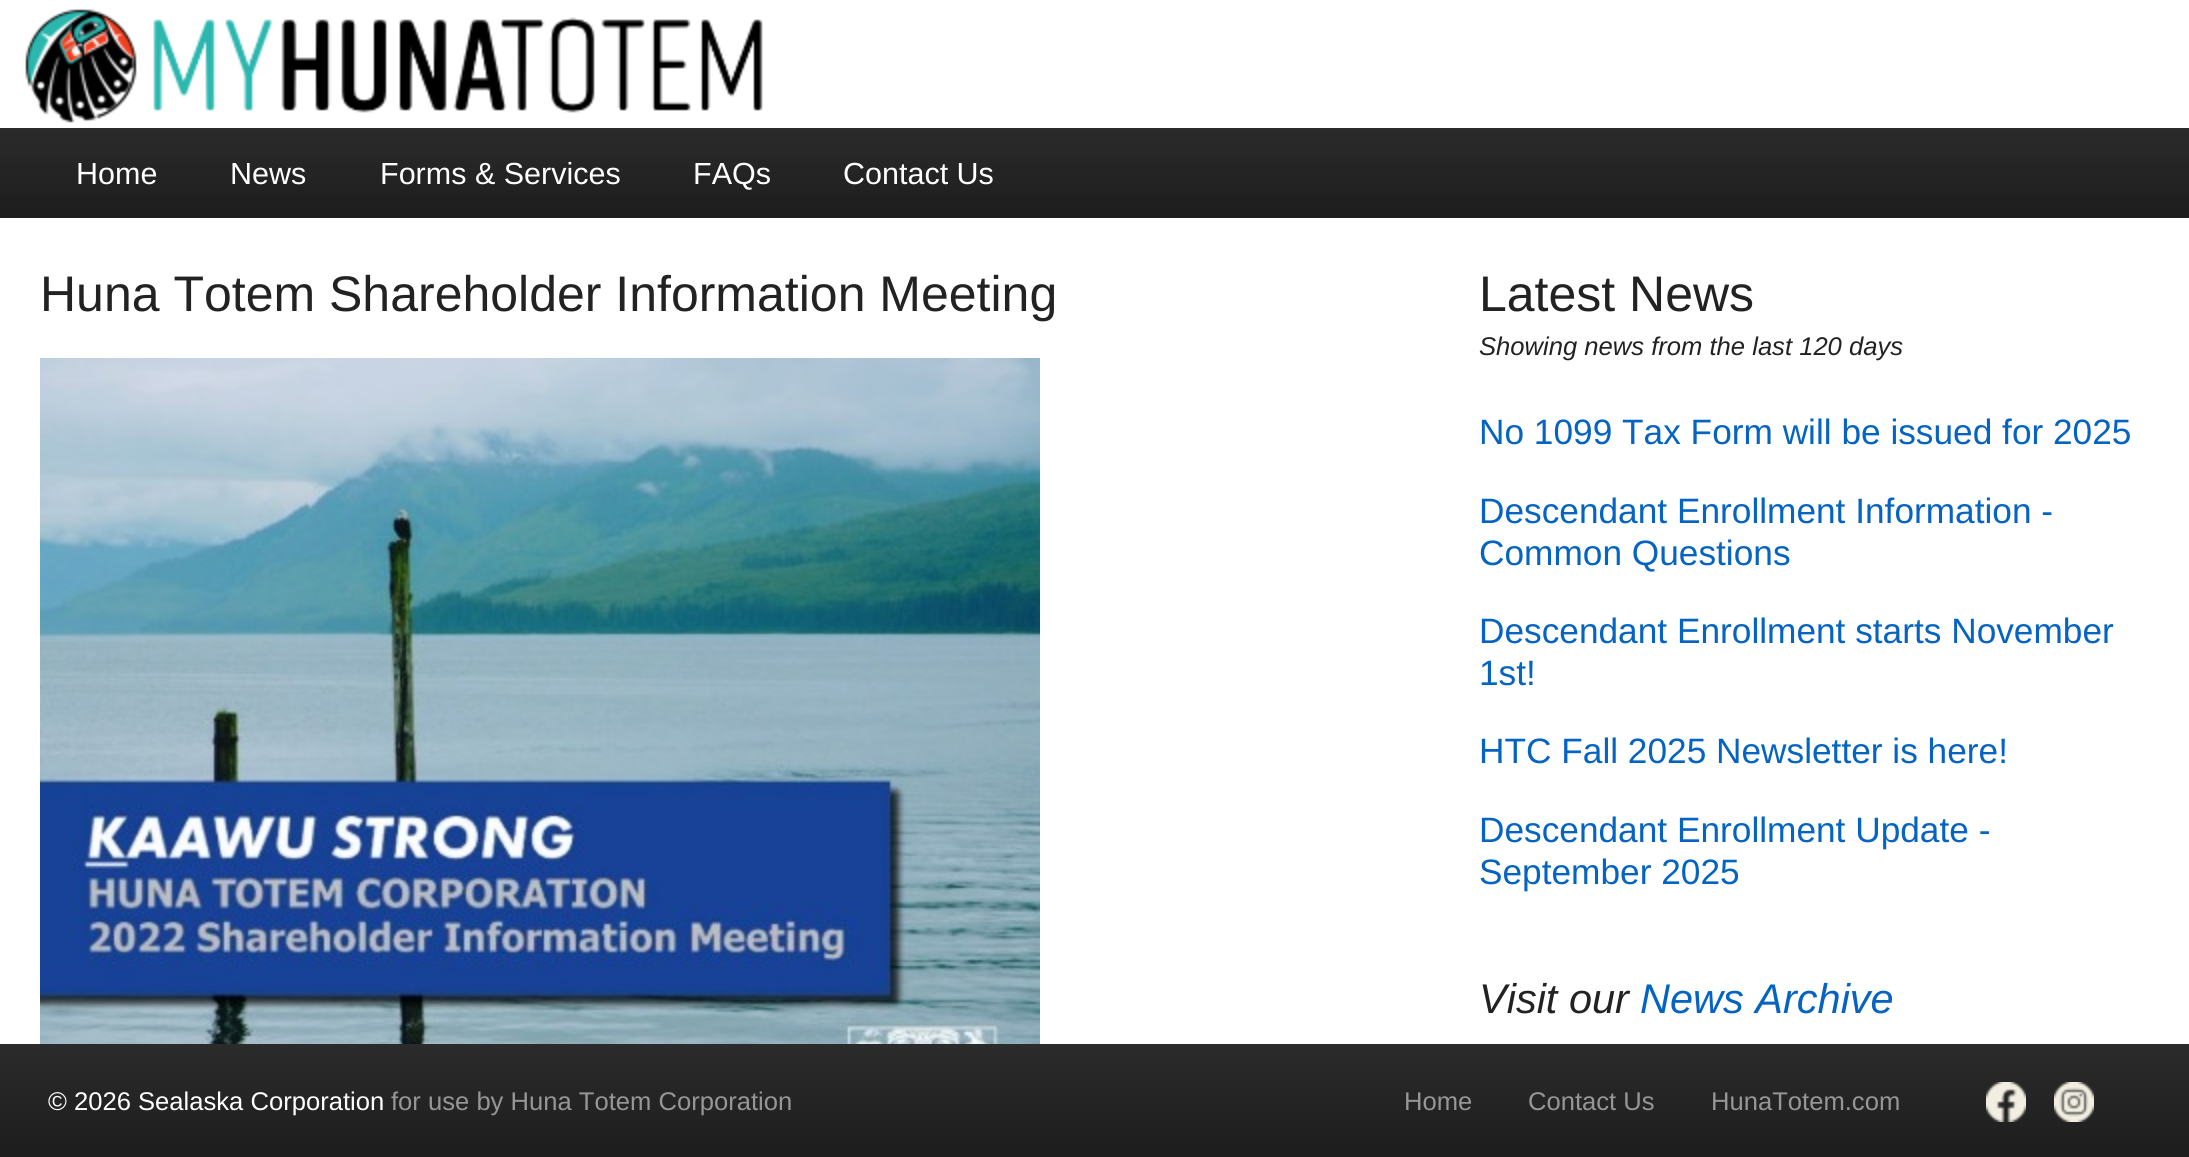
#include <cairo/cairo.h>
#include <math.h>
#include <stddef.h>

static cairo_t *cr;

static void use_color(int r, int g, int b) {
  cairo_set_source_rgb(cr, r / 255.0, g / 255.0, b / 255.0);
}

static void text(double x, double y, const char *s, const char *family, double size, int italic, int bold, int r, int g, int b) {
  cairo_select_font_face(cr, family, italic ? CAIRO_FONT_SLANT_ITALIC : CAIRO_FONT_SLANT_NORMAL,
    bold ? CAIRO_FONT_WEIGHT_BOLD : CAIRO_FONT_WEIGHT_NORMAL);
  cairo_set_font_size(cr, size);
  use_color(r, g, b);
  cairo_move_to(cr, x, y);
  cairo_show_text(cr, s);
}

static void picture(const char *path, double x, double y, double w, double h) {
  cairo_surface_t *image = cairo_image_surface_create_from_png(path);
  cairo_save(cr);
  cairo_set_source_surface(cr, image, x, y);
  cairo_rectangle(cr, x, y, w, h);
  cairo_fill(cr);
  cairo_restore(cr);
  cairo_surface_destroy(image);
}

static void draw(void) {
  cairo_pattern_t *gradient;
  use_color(255, 255, 255);
  cairo_paint(cr);
  picture("img_01.png", 25, 9, 738, 114);
  gradient = cairo_pattern_create_linear(1095, 128, 1095, 218);
  cairo_pattern_add_color_stop_rgba(gradient, 0, 0.169, 0.169, 0.169, 1);
  cairo_pattern_add_color_stop_rgba(gradient, 1, 0.11, 0.114, 0.11, 1);
  cairo_set_source(cr, gradient);
  cairo_pattern_destroy(gradient);
  cairo_rectangle(cr, 0, 128, 2189, 90);
  cairo_fill(cr);
  picture("img_02.png", 40, 358, 1000, 686);
  gradient = cairo_pattern_create_linear(1095, 1044, 1095, 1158);
  cairo_pattern_add_color_stop_rgba(gradient, 0, 0.169, 0.169, 0.169, 1);
  cairo_pattern_add_color_stop_rgba(gradient, 1, 0.11, 0.114, 0.11, 1);
  cairo_set_source(cr, gradient);
  cairo_pattern_destroy(gradient);
  cairo_rectangle(cr, 0, 1044, 2189, 113);
  cairo_fill(cr);
  picture("img_03.png", 1986, 1082, 40, 40);
  picture("img_04.png", 2054, 1082, 40, 40);
  text(76, 184, "Home", "Liberation Sans", 30.5, 0, 0, 255, 255, 255);
  text(230, 184, "News", "Liberation Sans", 30.5, 0, 0, 255, 255, 255);
  text(380, 184, "Forms & Services", "Liberation Sans", 30.5, 0, 0, 255, 255, 255);
  text(693, 184, "FAQs", "Liberation Sans", 30.5, 0, 0, 255, 255, 255);
  text(843, 184, "Contact Us", "Liberation Sans", 30.5, 0, 0, 255, 255, 255);
  text(40, 311, "Huna Totem Shareholder Information Meeting", "Liberation Sans", 50, 0, 0, 34, 34, 34);
  text(1479, 311, "Latest News", "Liberation Sans", 50, 0, 0, 34, 34, 34);
  text(1479, 355, "Showing news from the last 120 days", "Liberation Sans", 25.6, 1, 0, 34, 34, 34);
  text(1479, 444, "No 1099 Tax Form will be issued for 2025", "Liberation Sans", 35.25, 0, 0, 5, 99, 193);
  text(1479, 523, "Descendant Enrollment Information -", "Liberation Sans", 35.25, 0, 0, 5, 99, 193);
  text(1479, 565, "Common Questions", "Liberation Sans", 35.25, 0, 0, 5, 99, 193);
  text(1479, 643, "Descendant Enrollment starts November", "Liberation Sans", 35.25, 0, 0, 5, 99, 193);
  text(1479, 685, "1st!", "Liberation Sans", 35.25, 0, 0, 5, 99, 193);
  text(1479, 763, "HTC Fall 2025 Newsletter is here!", "Liberation Sans", 35.25, 0, 0, 5, 99, 193);
  text(1479, 842, "Descendant Enrollment Update -", "Liberation Sans", 35.25, 0, 0, 5, 99, 193);
  text(1479, 884, "September 2025", "Liberation Sans", 35.25, 0, 0, 5, 99, 193);
  text(1479, 1013, "Visit our", "Liberation Sans", 41.5, 1, 0, 34, 34, 34);
  text(1640, 1013, "News Archive", "Liberation Sans", 41.5, 1, 0, 5, 99, 193);
  text(48, 1110, "© 2026 Sealaska Corporation", "Liberation Sans", 25.6, 0, 0, 255, 255, 255);
  text(391, 1110, "for use by Huna Totem Corporation", "Liberation Sans", 25.6, 0, 0, 150, 150, 150);
  text(1404, 1110, "Home", "Liberation Sans", 25.6, 0, 0, 150, 150, 150);
  text(1528, 1110, "Contact Us", "Liberation Sans", 25.6, 0, 0, 150, 150, 150);
  text(1711, 1110, "HunaTotem.com", "Liberation Sans", 25.6, 0, 0, 150, 150, 150);
}

int main(void) {
  cairo_surface_t *surface = cairo_image_surface_create(CAIRO_FORMAT_RGB24, 2189, 1157);
  cr = cairo_create(surface);
  cairo_font_options_t *options = cairo_font_options_create();
  cairo_font_options_set_hint_metrics(options, CAIRO_HINT_METRICS_OFF);
  cairo_font_options_set_hint_style(options, CAIRO_HINT_STYLE_NONE);
  cairo_set_font_options(cr, options);
  cairo_set_miter_limit(cr, 4);
  draw();
  cairo_surface_write_to_png(surface, "out.png");
  cairo_font_options_destroy(options);
  cairo_destroy(cr);
  cairo_surface_destroy(surface);
  return 0;
}
